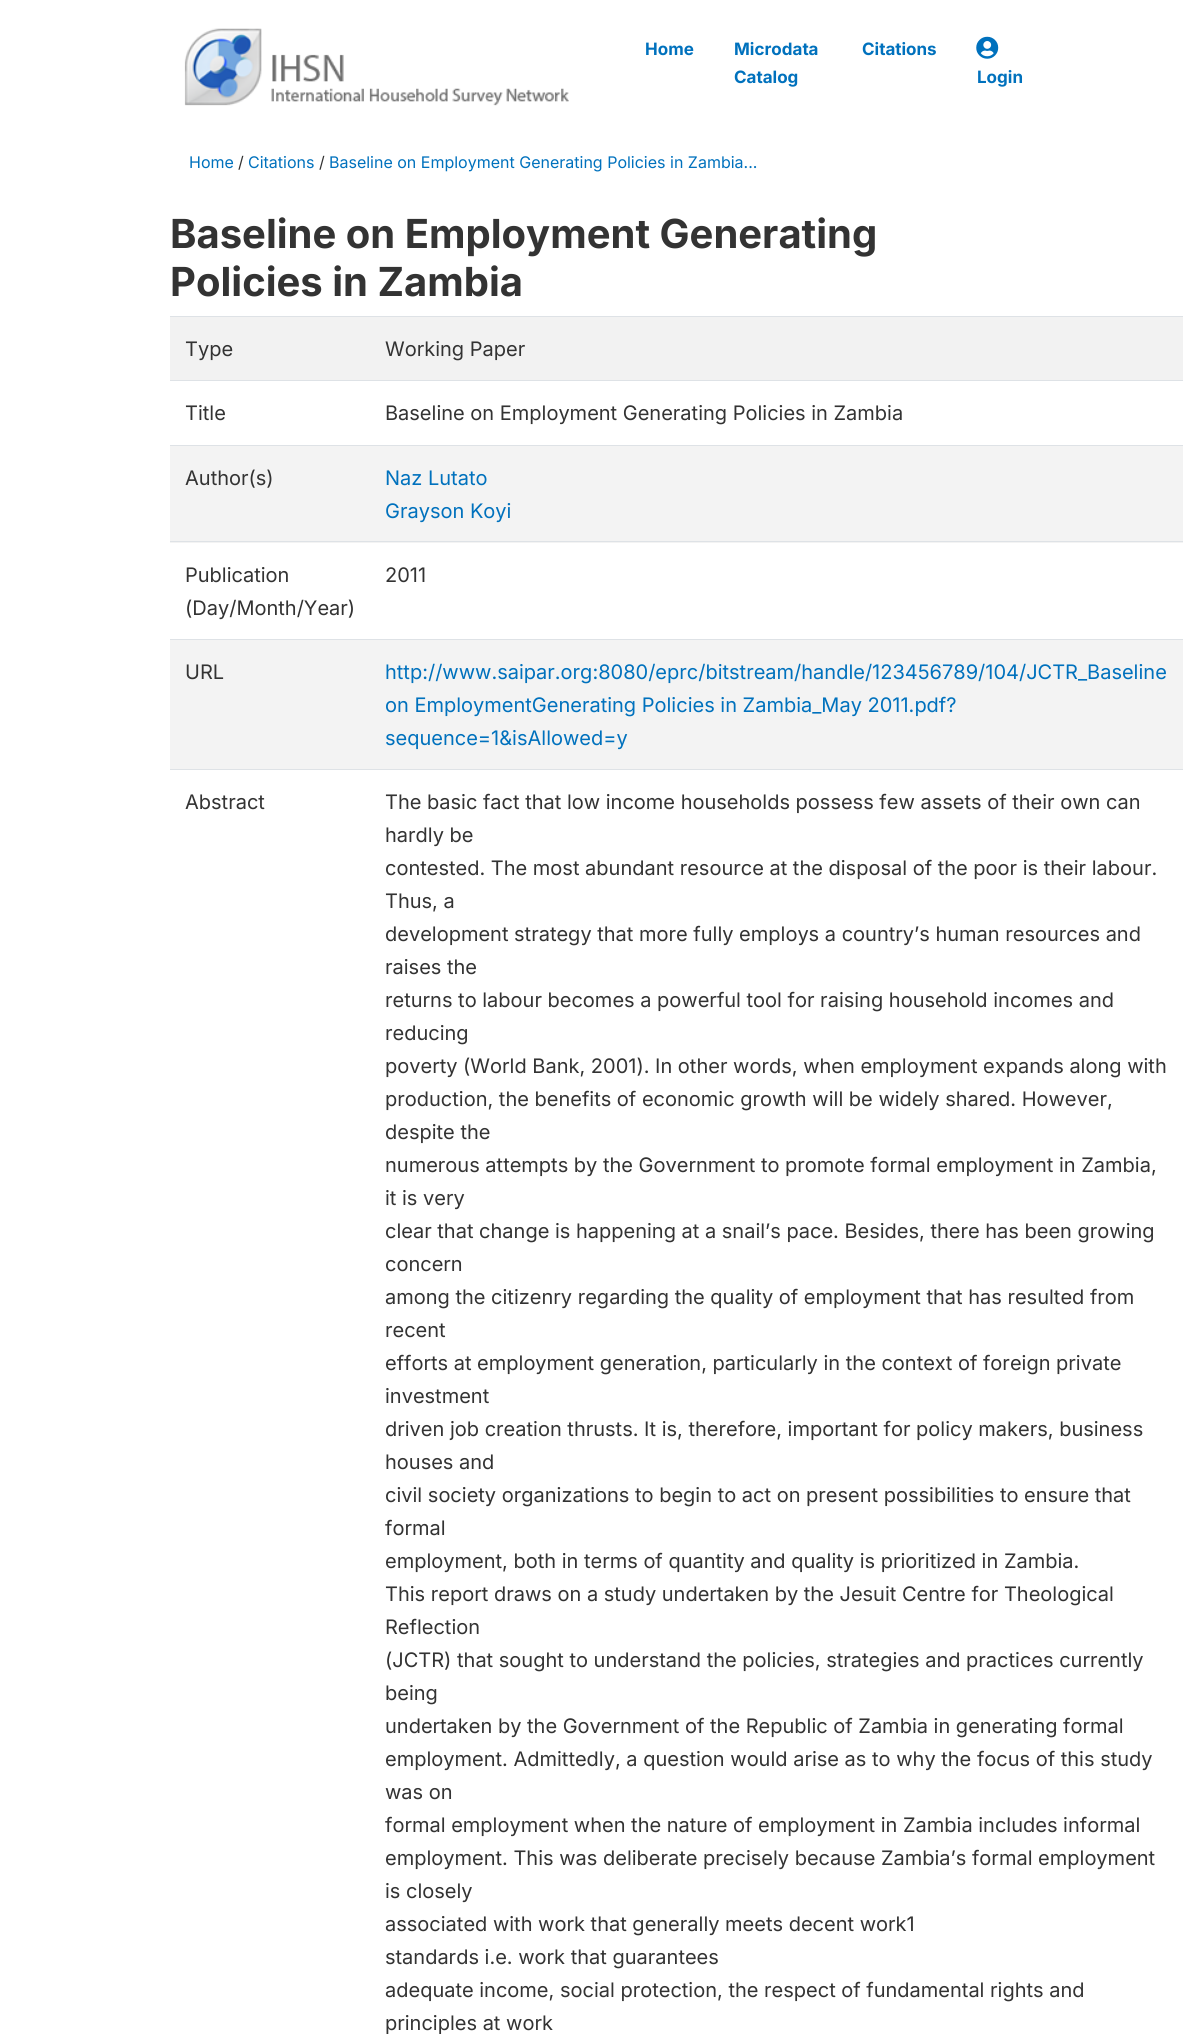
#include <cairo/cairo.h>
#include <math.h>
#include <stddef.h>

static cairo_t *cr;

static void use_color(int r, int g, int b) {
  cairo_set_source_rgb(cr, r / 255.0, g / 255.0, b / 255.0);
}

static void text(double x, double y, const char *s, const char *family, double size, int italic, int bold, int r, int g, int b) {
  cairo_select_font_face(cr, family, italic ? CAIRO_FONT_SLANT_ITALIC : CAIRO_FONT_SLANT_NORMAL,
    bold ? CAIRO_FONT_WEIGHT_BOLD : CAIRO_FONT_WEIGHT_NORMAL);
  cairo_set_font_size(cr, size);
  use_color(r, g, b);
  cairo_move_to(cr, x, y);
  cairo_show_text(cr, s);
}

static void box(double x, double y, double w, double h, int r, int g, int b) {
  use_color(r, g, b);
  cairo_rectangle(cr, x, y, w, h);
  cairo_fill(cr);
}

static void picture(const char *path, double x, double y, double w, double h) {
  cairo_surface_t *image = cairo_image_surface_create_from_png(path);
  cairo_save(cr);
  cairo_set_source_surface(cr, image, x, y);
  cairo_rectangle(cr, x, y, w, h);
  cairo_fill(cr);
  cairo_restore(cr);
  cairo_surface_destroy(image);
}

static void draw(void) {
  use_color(255, 255, 255);
  cairo_paint(cr);
  picture("img_01.png", 184, 28, 385, 78);
  picture("img_02.png", 976, 36, 23, 23);
  box(170, 317, 1013, 63, 242, 242, 242);
  box(170, 316, 1013, 1, 222, 226, 230);
  box(170, 380, 1013, 1, 222, 226, 230);
  box(170, 446, 1013, 97, 243, 243, 243);
  box(170, 445, 1013, 1, 222, 226, 230);
  box(170, 541, 1013, 1, 222, 226, 230);
  box(170, 640, 1013, 129, 243, 243, 243);
  box(170, 639, 1013, 1, 222, 226, 230);
  box(170, 769, 1013, 1, 222, 226, 230);
  text(645, 55, "Home", "Inter", 17, 0, 1, 0, 113, 189);
  text(734, 55, "Microdata", "Inter", 17, 0, 1, 0, 113, 189);
  text(734, 83, "Catalog", "Inter", 17, 0, 1, 0, 113, 189);
  text(862, 55, "Citations", "Inter", 17, 0, 1, 0, 113, 189);
  text(977, 83, "Login", "Inter", 17, 0, 1, 0, 113, 189);
  text(189, 168, "Home", "Inter", 16, 0, 0, 0, 113, 189);
  text(238, 168, "/", "Inter", 16, 0, 0, 51, 51, 51);
  text(248, 168, "Citations", "Inter", 16, 0, 0, 0, 113, 189);
  text(319, 168, "/", "Inter", 16, 0, 0, 51, 51, 51);
  text(329, 168, "Baseline on Employment Generating Policies in Zambia...", "Inter", 16, 0, 0, 0, 113, 189);
  text(170, 248, "Baseline on Employment Generating", "Inter", 40, 0, 1, 51, 51, 51);
  text(170, 296, "Policies in Zambia", "Inter", 40, 0, 1, 51, 51, 51);
  text(185, 356, "Type", "Inter", 20, 0, 0, 51, 51, 51);
  text(385, 356, "Working Paper", "Inter", 20, 0, 0, 51, 51, 51);
  text(185, 420, "Title", "Inter", 20, 0, 0, 51, 51, 51);
  text(385, 420, "Baseline on Employment Generating Policies in Zambia", "Inter", 20, 0, 0, 51, 51, 51);
  text(185, 485, "Author(s)", "Inter", 20, 0, 0, 51, 51, 51);
  text(385, 485, "Naz Lutato", "Inter", 20, 0, 0, 0, 113, 189);
  text(385, 518, "Grayson Koyi", "Inter", 20, 0, 0, 0, 113, 189);
  text(185, 582, "Publication", "Inter", 20, 0, 0, 51, 51, 51);
  text(185, 615, "(Day/Month/Year)", "Inter", 20, 0, 0, 51, 51, 51);
  text(385, 582, "2011", "Inter", 20, 0, 0, 51, 51, 51);
  text(185, 679, "URL", "Inter", 20, 0, 0, 51, 51, 51);
  text(385, 679, "http://www.saipar.org:8080/eprc/bitstream/handle/123456789/104/JCTR_Baseline", "Inter", 20, 0, 0, 0, 113, 189);
  text(385, 712, "on EmploymentGenerating Policies in Zambia_May 2011.pdf?", "Inter", 20, 0, 0, 0, 113, 189);
  text(385, 745, "sequence=1&isAllowed=y", "Inter", 20, 0, 0, 0, 113, 189);
  text(185, 809, "Abstract", "Inter", 20, 0, 0, 51, 51, 51);
  text(385, 809, "The basic fact that low income households possess few assets of their own can", "Inter", 20, 0, 0, 51, 51, 51);
  text(385, 842, "hardly be", "Inter", 20, 0, 0, 51, 51, 51);
  text(385, 875, "contested. The most abundant resource at the disposal of the poor is their labour.", "Inter", 20, 0, 0, 51, 51, 51);
  text(385, 908, "Thus, a", "Inter", 20, 0, 0, 51, 51, 51);
  text(385, 941, "development strategy that more fully employs a country’s human resources and", "Inter", 20, 0, 0, 51, 51, 51);
  text(385, 974, "raises the", "Inter", 20, 0, 0, 51, 51, 51);
  text(385, 1007, "returns to labour becomes a powerful tool for raising household incomes and", "Inter", 20, 0, 0, 51, 51, 51);
  text(385, 1040, "reducing", "Inter", 20, 0, 0, 51, 51, 51);
  text(385, 1073, "poverty (World Bank, 2001). In other words, when employment expands along with", "Inter", 20, 0, 0, 51, 51, 51);
  text(385, 1106, "production, the benefits of economic growth will be widely shared. However,", "Inter", 20, 0, 0, 51, 51, 51);
  text(385, 1139, "despite the", "Inter", 20, 0, 0, 51, 51, 51);
  text(385, 1172, "numerous attempts by the Government to promote formal employment in Zambia,", "Inter", 20, 0, 0, 51, 51, 51);
  text(385, 1205, "it is very", "Inter", 20, 0, 0, 51, 51, 51);
  text(385, 1238, "clear that change is happening at a snail’s pace. Besides, there has been growing", "Inter", 20, 0, 0, 51, 51, 51);
  text(385, 1271, "concern", "Inter", 20, 0, 0, 51, 51, 51);
  text(385, 1304, "among the citizenry regarding the quality of employment that has resulted from", "Inter", 20, 0, 0, 51, 51, 51);
  text(385, 1337, "recent", "Inter", 20, 0, 0, 51, 51, 51);
  text(385, 1370, "efforts at employment generation, particularly in the context of foreign private", "Inter", 20, 0, 0, 51, 51, 51);
  text(385, 1403, "investment", "Inter", 20, 0, 0, 51, 51, 51);
  text(385, 1436, "driven job creation thrusts. It is, therefore, important for policy makers, business", "Inter", 20, 0, 0, 51, 51, 51);
  text(385, 1469, "houses and", "Inter", 20, 0, 0, 51, 51, 51);
  text(385, 1502, "civil society organizations to begin to act on present possibilities to ensure that", "Inter", 20, 0, 0, 51, 51, 51);
  text(385, 1535, "formal", "Inter", 20, 0, 0, 51, 51, 51);
  text(385, 1568, "employment, both in terms of quantity and quality is prioritized in Zambia.", "Inter", 20, 0, 0, 51, 51, 51);
  text(385, 1601, "This report draws on a study undertaken by the Jesuit Centre for Theological", "Inter", 20, 0, 0, 51, 51, 51);
  text(385, 1634, "Reflection", "Inter", 20, 0, 0, 51, 51, 51);
  text(385, 1667, "(JCTR) that sought to understand the policies, strategies and practices currently", "Inter", 20, 0, 0, 51, 51, 51);
  text(385, 1700, "being", "Inter", 20, 0, 0, 51, 51, 51);
  text(385, 1733, "undertaken by the Government of the Republic of Zambia in generating formal", "Inter", 20, 0, 0, 51, 51, 51);
  text(385, 1766, "employment. Admittedly, a question would arise as to why the focus of this study", "Inter", 20, 0, 0, 51, 51, 51);
  text(385, 1799, "was on", "Inter", 20, 0, 0, 51, 51, 51);
  text(385, 1832, "formal employment when the nature of employment in Zambia includes informal", "Inter", 20, 0, 0, 51, 51, 51);
  text(385, 1865, "employment. This was deliberate precisely because Zambia’s formal employment", "Inter", 20, 0, 0, 51, 51, 51);
  text(385, 1898, "is closely", "Inter", 20, 0, 0, 51, 51, 51);
  text(385, 1931, "associated with work that generally meets decent work1", "Inter", 20, 0, 0, 51, 51, 51);
  text(385, 1964, "standards i.e. work that guarantees", "Inter", 20, 0, 0, 51, 51, 51);
  text(385, 1997, "adequate income, social protection, the respect of fundamental rights and", "Inter", 20, 0, 0, 51, 51, 51);
  text(385, 2030, "principles at work", "Inter", 20, 0, 0, 51, 51, 51);
}

int main(void) {
  cairo_surface_t *surface = cairo_image_surface_create(CAIRO_FORMAT_RGB24, 1202, 2034);
  cr = cairo_create(surface);
  cairo_font_options_t *options = cairo_font_options_create();
  cairo_font_options_set_hint_metrics(options, CAIRO_HINT_METRICS_OFF);
  cairo_font_options_set_hint_style(options, CAIRO_HINT_STYLE_NONE);
  cairo_set_font_options(cr, options);
  cairo_set_miter_limit(cr, 4);
  draw();
  cairo_surface_write_to_png(surface, "out.png");
  cairo_font_options_destroy(options);
  cairo_destroy(cr);
  cairo_surface_destroy(surface);
  return 0;
}
